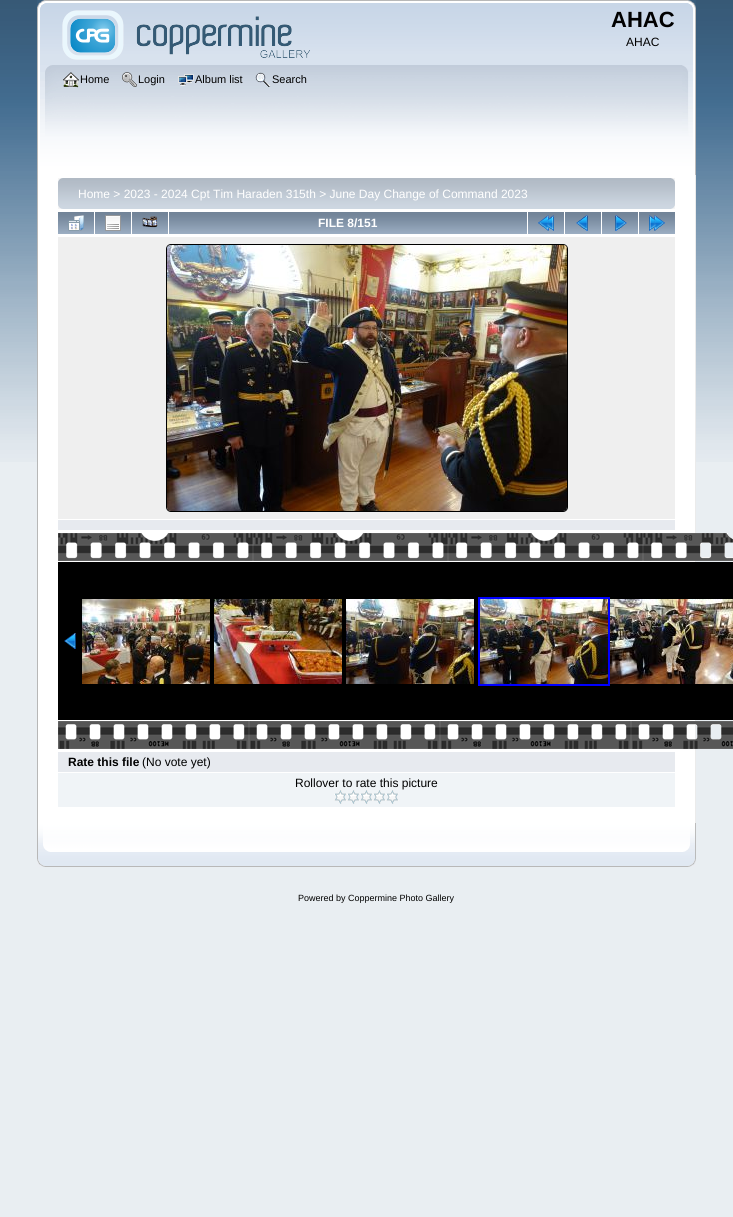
#include <cairo/cairo.h>
#include <math.h>
#include <stddef.h>

static cairo_t *cr;

static void use_color(int r, int g, int b) {
  cairo_set_source_rgb(cr, r / 255.0, g / 255.0, b / 255.0);
}

static void text(double x, double y, const char *s, const char *family, double size, int italic, int bold, int r, int g, int b) {
  cairo_select_font_face(cr, family, italic ? CAIRO_FONT_SLANT_ITALIC : CAIRO_FONT_SLANT_NORMAL,
    bold ? CAIRO_FONT_WEIGHT_BOLD : CAIRO_FONT_WEIGHT_NORMAL);
  cairo_set_font_size(cr, size);
  use_color(r, g, b);
  cairo_move_to(cr, x, y);
  cairo_show_text(cr, s);
}

static void box(double x, double y, double w, double h, int r, int g, int b) {
  use_color(r, g, b);
  cairo_rectangle(cr, x, y, w, h);
  cairo_fill(cr);
}

static void round_rect(double x, double y, double w, double h, double r) {
  cairo_new_sub_path(cr);
  cairo_arc(cr, x + w - r, y + h - r, r, 0, M_PI / 2);
  cairo_arc(cr, x + r, y + h - r, r, M_PI / 2, M_PI);
  cairo_arc(cr, x + r, y + r, r, M_PI, 1.5 * M_PI);
  cairo_arc(cr, x + w - r, y + r, r, 1.5 * M_PI, 2 * M_PI);
  cairo_close_path(cr);
}

static void picture(const char *path, double x, double y, double w, double h) {
  cairo_surface_t *image = cairo_image_surface_create_from_png(path);
  cairo_save(cr);
  cairo_set_source_surface(cr, image, x, y);
  cairo_rectangle(cr, x, y, w, h);
  cairo_fill(cr);
  cairo_restore(cr);
  cairo_surface_destroy(image);
}

static void draw(void) {
  use_color(233, 238, 242);
  cairo_paint(cr);
  picture("img_01.png", 0, 0, 733, 462);
  picture("img_02.png", 37, 0, 651, 65);
  picture("img_03.png", 688, 0, 8, 65);
  picture("img_04.png", 62, 10, 248, 50);
  picture("img_05.png", 37, 65, 645, 110);
  picture("img_06.png", 682, 65, 14, 110);
  picture("img_07.png", 63, 72, 16, 16);
  picture("img_08.png", 122, 72, 15, 15);
  picture("img_09.png", 178, 74, 16, 12);
  picture("img_10.png", 255, 72, 16, 15);
  box(38, 175, 657, 648, 255, 255, 255);
  box(37, 175, 1, 648, 183, 183, 183);
  box(695, 175, 1, 648, 235, 235, 235);
  picture("img_11.png", 58, 178, 613, 31);
  picture("img_12.png", 671, 178, 4, 31);
  picture("img_13.png", 58, 212, 36, 22);
  picture("img_14.png", 68, 215, 16, 16);
  picture("img_13.png", 95, 212, 36, 22);
  picture("img_15.png", 105, 215, 16, 16);
  picture("img_13.png", 132, 212, 36, 22);
  picture("img_16.png", 142, 216, 16, 12);
  picture("img_17.png", 169, 212, 358, 22);
  picture("img_13.png", 528, 212, 36, 22);
  picture("img_18.png", 538, 215, 16, 16);
  picture("img_13.png", 565, 212, 36, 22);
  picture("img_19.png", 576, 215, 12, 16);
  picture("img_13.png", 602, 212, 36, 22);
  picture("img_20.png", 615, 215, 12, 16);
  picture("img_13.png", 639, 212, 36, 22);
  picture("img_21.png", 649, 215, 16, 16);
  box(58, 237, 617, 282, 239, 239, 239);
  round_rect(166.5, 244.5, 401, 267, 4.5);
  use_color(0, 0, 0);
  cairo_set_line_width(cr, 1);
  cairo_stroke(cr);
  picture("img_22.png", 167, 245, 400, 266);
  box(58, 520, 617, 10, 231, 234, 239);
  picture("img_23.png", 58, 533, 675, 28);
  box(58, 562, 675, 158, 0, 0, 0);
  picture("img_24.png", 64, 633, 12, 16);
  picture("img_25.png", 82, 599, 128, 85);
  picture("img_26.png", 214, 599, 128, 85);
  picture("img_27.png", 346, 599, 128, 85);
  cairo_rectangle(cr, 479, 598, 130, 87);
  use_color(0, 0, 255);
  cairo_set_line_width(cr, 2);
  cairo_stroke(cr);
  picture("img_28.png", 480, 599, 128, 85);
  picture("img_29.png", 610, 599, 123, 85);
  picture("img_30.png", 58, 721, 675, 28);
  box(58, 752, 617, 20, 231, 234, 239);
  box(58, 773, 617, 34, 240, 244, 247);
  picture("img_31.png", 334, 790, 13, 14);
  picture("img_31.png", 347, 790, 13, 14);
  picture("img_31.png", 360, 790, 13, 14);
  picture("img_31.png", 373, 790, 13, 14);
  picture("img_31.png", 386, 790, 13, 14);
  picture("img_32.png", 37, 823, 646, 44);
  picture("img_33.png", 683, 823, 13, 44);
  text(611, 27, "AHAC", "Liberation Sans", 22, 0, 1, 0, 0, 0);
  text(626, 46, "AHAC", "Liberation Sans", 12, 0, 0, 0, 0, 0);
  text(80, 83, "Home", "Liberation Sans", 11, 0, 0, 0, 0, 0);
  text(138, 83, "Login", "Liberation Sans", 11, 0, 0, 0, 0, 0);
  text(195, 83, "Album list", "Liberation Sans", 11, 0, 0, 0, 0, 0);
  text(272, 83, "Search", "Liberation Sans", 11, 0, 0, 0, 0, 0);
  text(78, 198, "Home > 2023 - 2024 Cpt Tim Haraden 315th > June Day Change of Command 2023", "Liberation Sans", 12, 0, 0, 255, 255, 255);
  text(318, 227, "FILE 8/151", "Liberation Sans", 12, 0, 1, 255, 255, 255);
  text(68, 766, "Rate this file", "Liberation Sans", 12, 0, 1, 0, 0, 0);
  text(142, 766, "(No vote yet)", "Liberation Sans", 12, 0, 0, 0, 0, 0);
  text(295, 787, "Rollover to rate this picture", "Liberation Sans", 12, 0, 0, 0, 0, 0);
  text(298, 901, "Powered by Coppermine Photo Gallery", "Liberation Sans", 9, 0, 0, 0, 0, 0);
}

int main(void) {
  cairo_surface_t *surface = cairo_image_surface_create(CAIRO_FORMAT_RGB24, 733, 1217);
  cr = cairo_create(surface);
  cairo_font_options_t *options = cairo_font_options_create();
  cairo_font_options_set_hint_metrics(options, CAIRO_HINT_METRICS_OFF);
  cairo_font_options_set_hint_style(options, CAIRO_HINT_STYLE_NONE);
  cairo_set_font_options(cr, options);
  cairo_set_miter_limit(cr, 4);
  draw();
  cairo_surface_write_to_png(surface, "out.png");
  cairo_font_options_destroy(options);
  cairo_destroy(cr);
  cairo_surface_destroy(surface);
  return 0;
}
